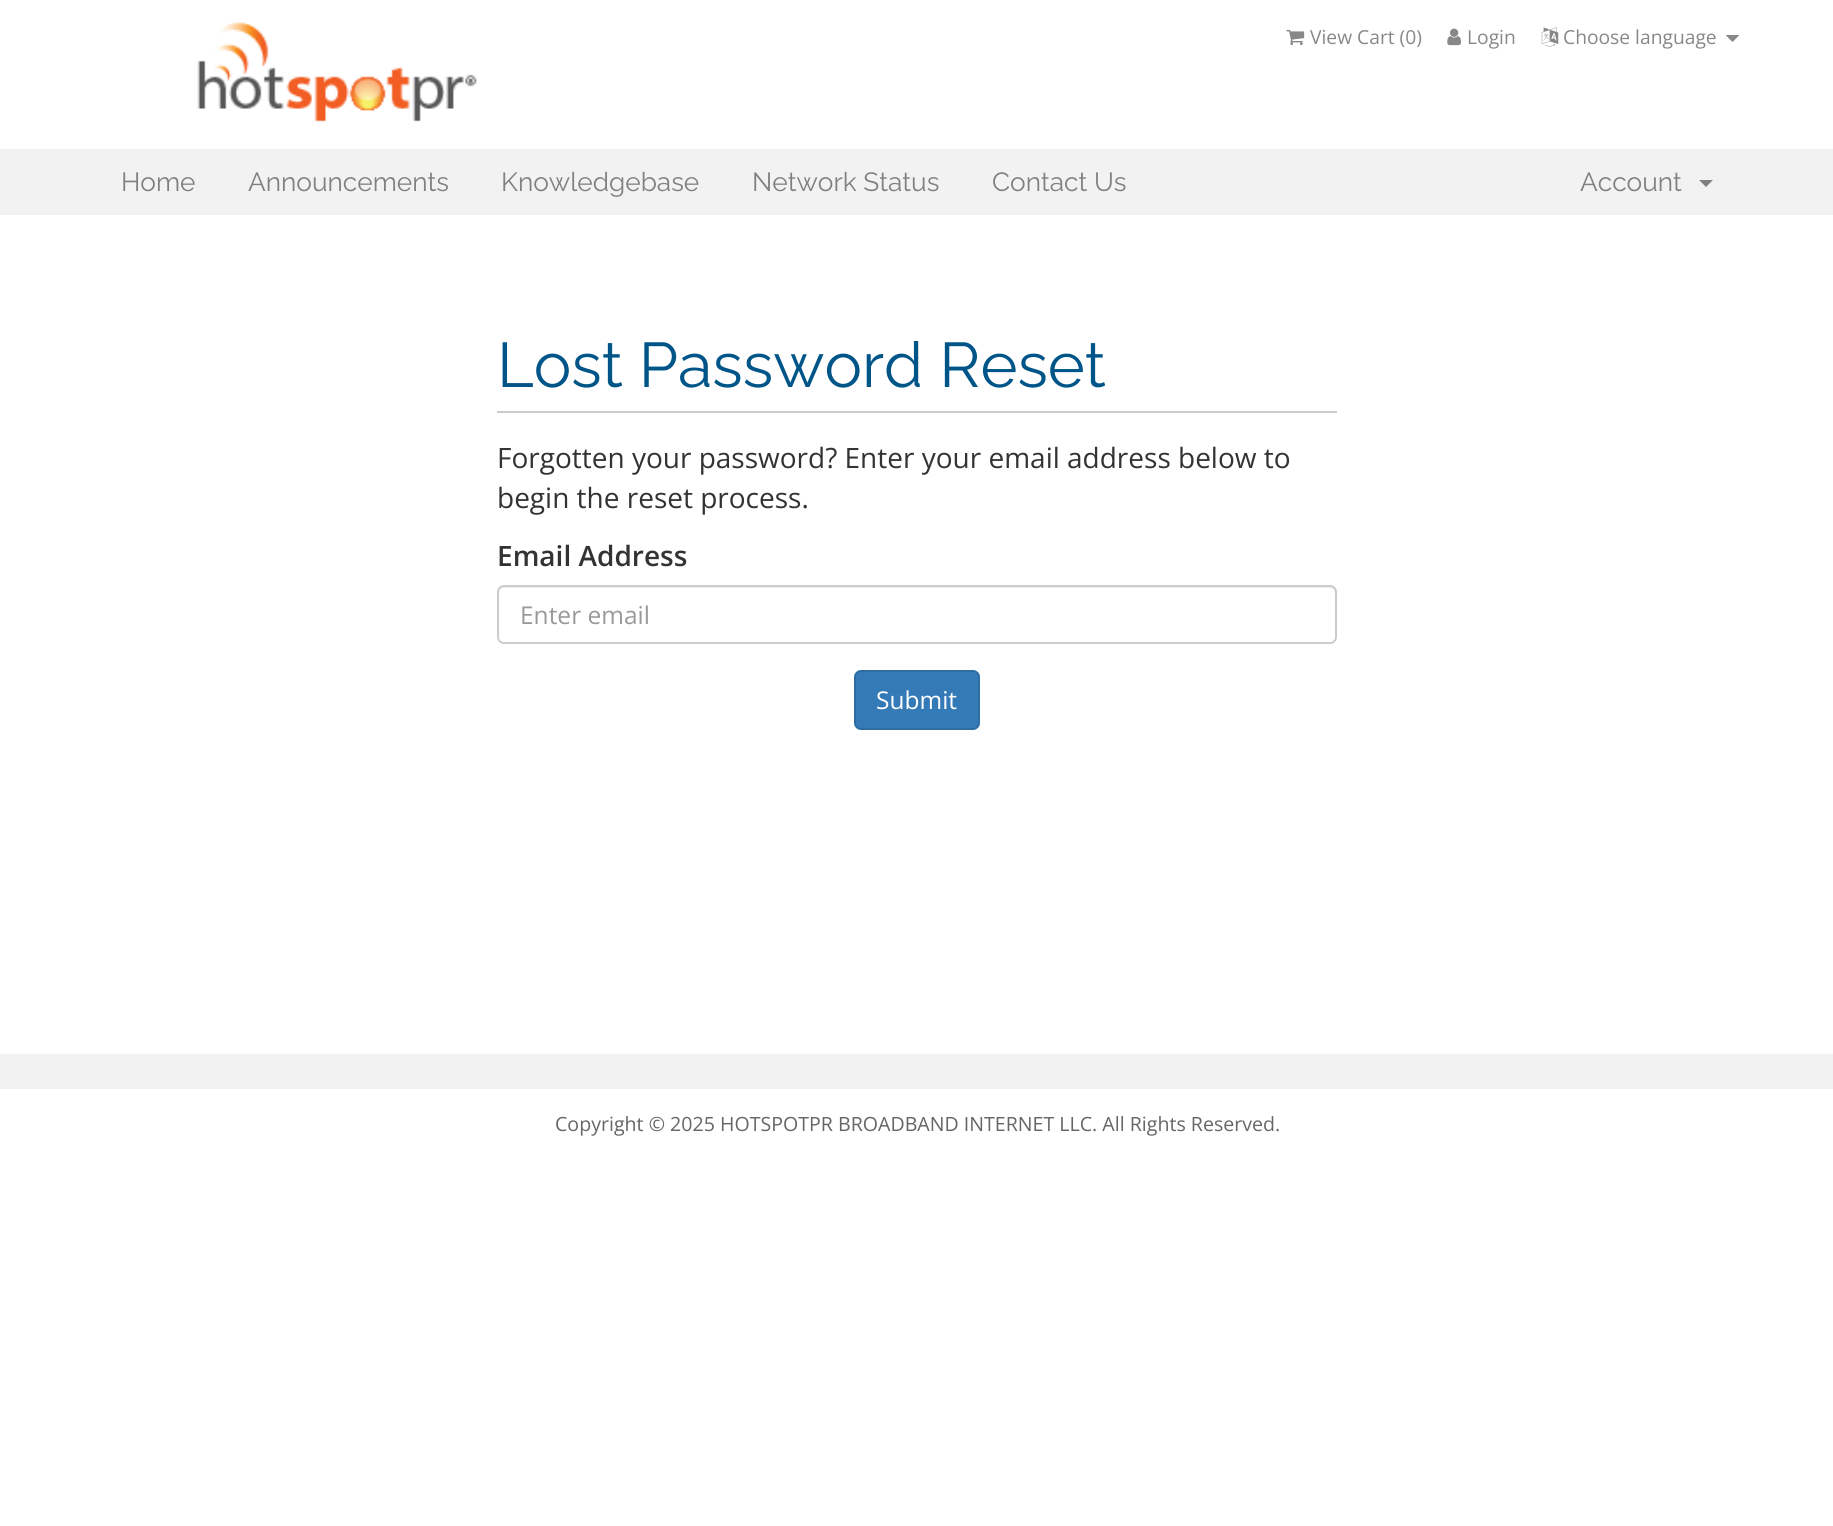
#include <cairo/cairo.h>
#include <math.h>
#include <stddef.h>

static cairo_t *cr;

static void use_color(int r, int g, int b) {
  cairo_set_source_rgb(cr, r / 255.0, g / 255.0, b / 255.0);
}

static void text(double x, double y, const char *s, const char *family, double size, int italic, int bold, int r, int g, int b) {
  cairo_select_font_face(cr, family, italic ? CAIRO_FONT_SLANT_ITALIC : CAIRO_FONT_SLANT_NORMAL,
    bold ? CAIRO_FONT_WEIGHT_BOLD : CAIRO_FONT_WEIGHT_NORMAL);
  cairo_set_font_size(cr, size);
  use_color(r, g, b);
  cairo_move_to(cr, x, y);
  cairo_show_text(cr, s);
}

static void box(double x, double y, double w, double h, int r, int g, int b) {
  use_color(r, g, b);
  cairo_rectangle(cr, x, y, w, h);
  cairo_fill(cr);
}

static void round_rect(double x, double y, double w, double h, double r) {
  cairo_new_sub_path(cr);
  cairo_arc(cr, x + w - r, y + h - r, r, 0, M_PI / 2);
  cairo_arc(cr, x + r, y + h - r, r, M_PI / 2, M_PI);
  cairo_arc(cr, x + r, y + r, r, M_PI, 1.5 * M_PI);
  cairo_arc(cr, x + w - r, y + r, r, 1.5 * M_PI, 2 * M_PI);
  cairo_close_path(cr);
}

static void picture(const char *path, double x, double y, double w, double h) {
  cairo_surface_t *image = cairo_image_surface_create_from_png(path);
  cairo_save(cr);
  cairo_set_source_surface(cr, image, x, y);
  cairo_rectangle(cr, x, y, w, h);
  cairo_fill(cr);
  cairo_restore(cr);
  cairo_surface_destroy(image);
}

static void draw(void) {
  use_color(255, 255, 255);
  cairo_paint(cr);
  picture("img_01.png", 197, 22, 280, 100);
  picture("img_02.png", 1286, 30, 19, 16);
  picture("img_03.png", 1447, 28, 14, 18);
  picture("img_04.png", 1541, 27, 18, 20);
  use_color(136, 136, 136);
  cairo_new_path(cr);
  cairo_move_to(cr, 1725.5, 35);
  cairo_line_to(cr, 1739.5, 35);
  cairo_line_to(cr, 1732.5, 42);
  cairo_close_path(cr);
  cairo_fill(cr);
  box(0, 149, 1833, 66, 242, 242, 242);
  use_color(128, 128, 128);
  cairo_new_path(cr);
  cairo_move_to(cr, 1699, 180);
  cairo_line_to(cr, 1713, 180);
  cairo_line_to(cr, 1706, 187);
  cairo_close_path(cr);
  cairo_fill(cr);
  box(497, 411, 840, 2, 204, 204, 204);
  use_color(236, 236, 236);
  cairo_new_path(cr);
  cairo_move_to(cr, 504, 588);
  cairo_line_to(cr, 1330, 588);
  cairo_curve_to(cr, 1333, 588, 1335, 590, 1335, 593);
  cairo_line_to(cr, 1335, 591);
  cairo_curve_to(cr, 1335, 588, 1333, 586, 1330, 586);
  cairo_line_to(cr, 504, 586);
  cairo_curve_to(cr, 501, 586, 499, 588, 499, 591);
  cairo_line_to(cr, 499, 593);
  cairo_curve_to(cr, 499, 590, 501, 588, 504, 588);
  cairo_close_path(cr);
  cairo_fill(cr);
  round_rect(498, 586, 838, 57, 6);
  use_color(204, 204, 204);
  cairo_stroke(cr);
  use_color(51, 122, 183);
  round_rect(855, 671, 124, 58, 6);
  cairo_fill_preserve(cr);
  use_color(46, 109, 164);
  cairo_stroke(cr);
  box(0, 1054, 1833, 35, 242, 242, 242);
  text(1310, 44, "View Cart (0)", "Open Sans", 19.25, 0, 0, 136, 136, 136);
  text(1467, 44, "Login", "Open Sans", 19.25, 0, 0, 136, 136, 136);
  text(1563, 44, "Choose language", "Open Sans", 19.25, 0, 0, 136, 136, 136);
  text(121, 191, "Home", "Raleway", 26.25, 0, 0, 128, 128, 128);
  text(248, 191, "Announcements", "Raleway", 26.25, 0, 0, 128, 128, 128);
  text(501, 191, "Knowledgebase", "Raleway", 26.25, 0, 0, 128, 128, 128);
  text(752, 191, "Network Status", "Raleway", 26.25, 0, 0, 128, 128, 128);
  text(992, 191, "Contact Us", "Raleway", 26.25, 0, 0, 128, 128, 128);
  text(1580, 191, "Account", "Raleway", 26.25, 0, 0, 128, 128, 128);
  text(497, 387, "Lost Password Reset", "Raleway", 63, 0, 0, 0, 85, 136);
  text(497, 468, "Forgotten your password? Enter your email address below to", "Open Sans", 28, 0, 0, 51, 51, 51);
  text(497, 508, "begin the reset process.", "Open Sans", 28, 0, 0, 51, 51, 51);
  text(497, 566, "Email Address", "Open Sans SemiBold", 28, 0, 0, 51, 51, 51);
  text(520, 624, "Enter email", "Open Sans", 24.5, 0, 0, 153, 153, 153);
  text(876, 709, "Submit", "Open Sans", 24.5, 0, 0, 255, 255, 255);
  text(555, 1131, "Copyright © 2025 HOTSPOTPR BROADBAND INTERNET LLC. All Rights Reserved.", "Open Sans", 19.6, 0, 0, 102, 102, 102);
}

int main(void) {
  cairo_surface_t *surface = cairo_image_surface_create(CAIRO_FORMAT_RGB24, 1833, 1526);
  cr = cairo_create(surface);
  cairo_font_options_t *options = cairo_font_options_create();
  cairo_font_options_set_hint_metrics(options, CAIRO_HINT_METRICS_OFF);
  cairo_font_options_set_hint_style(options, CAIRO_HINT_STYLE_NONE);
  cairo_set_font_options(cr, options);
  cairo_set_miter_limit(cr, 4);
  draw();
  cairo_surface_write_to_png(surface, "out.png");
  cairo_font_options_destroy(options);
  cairo_destroy(cr);
  cairo_surface_destroy(surface);
  return 0;
}
